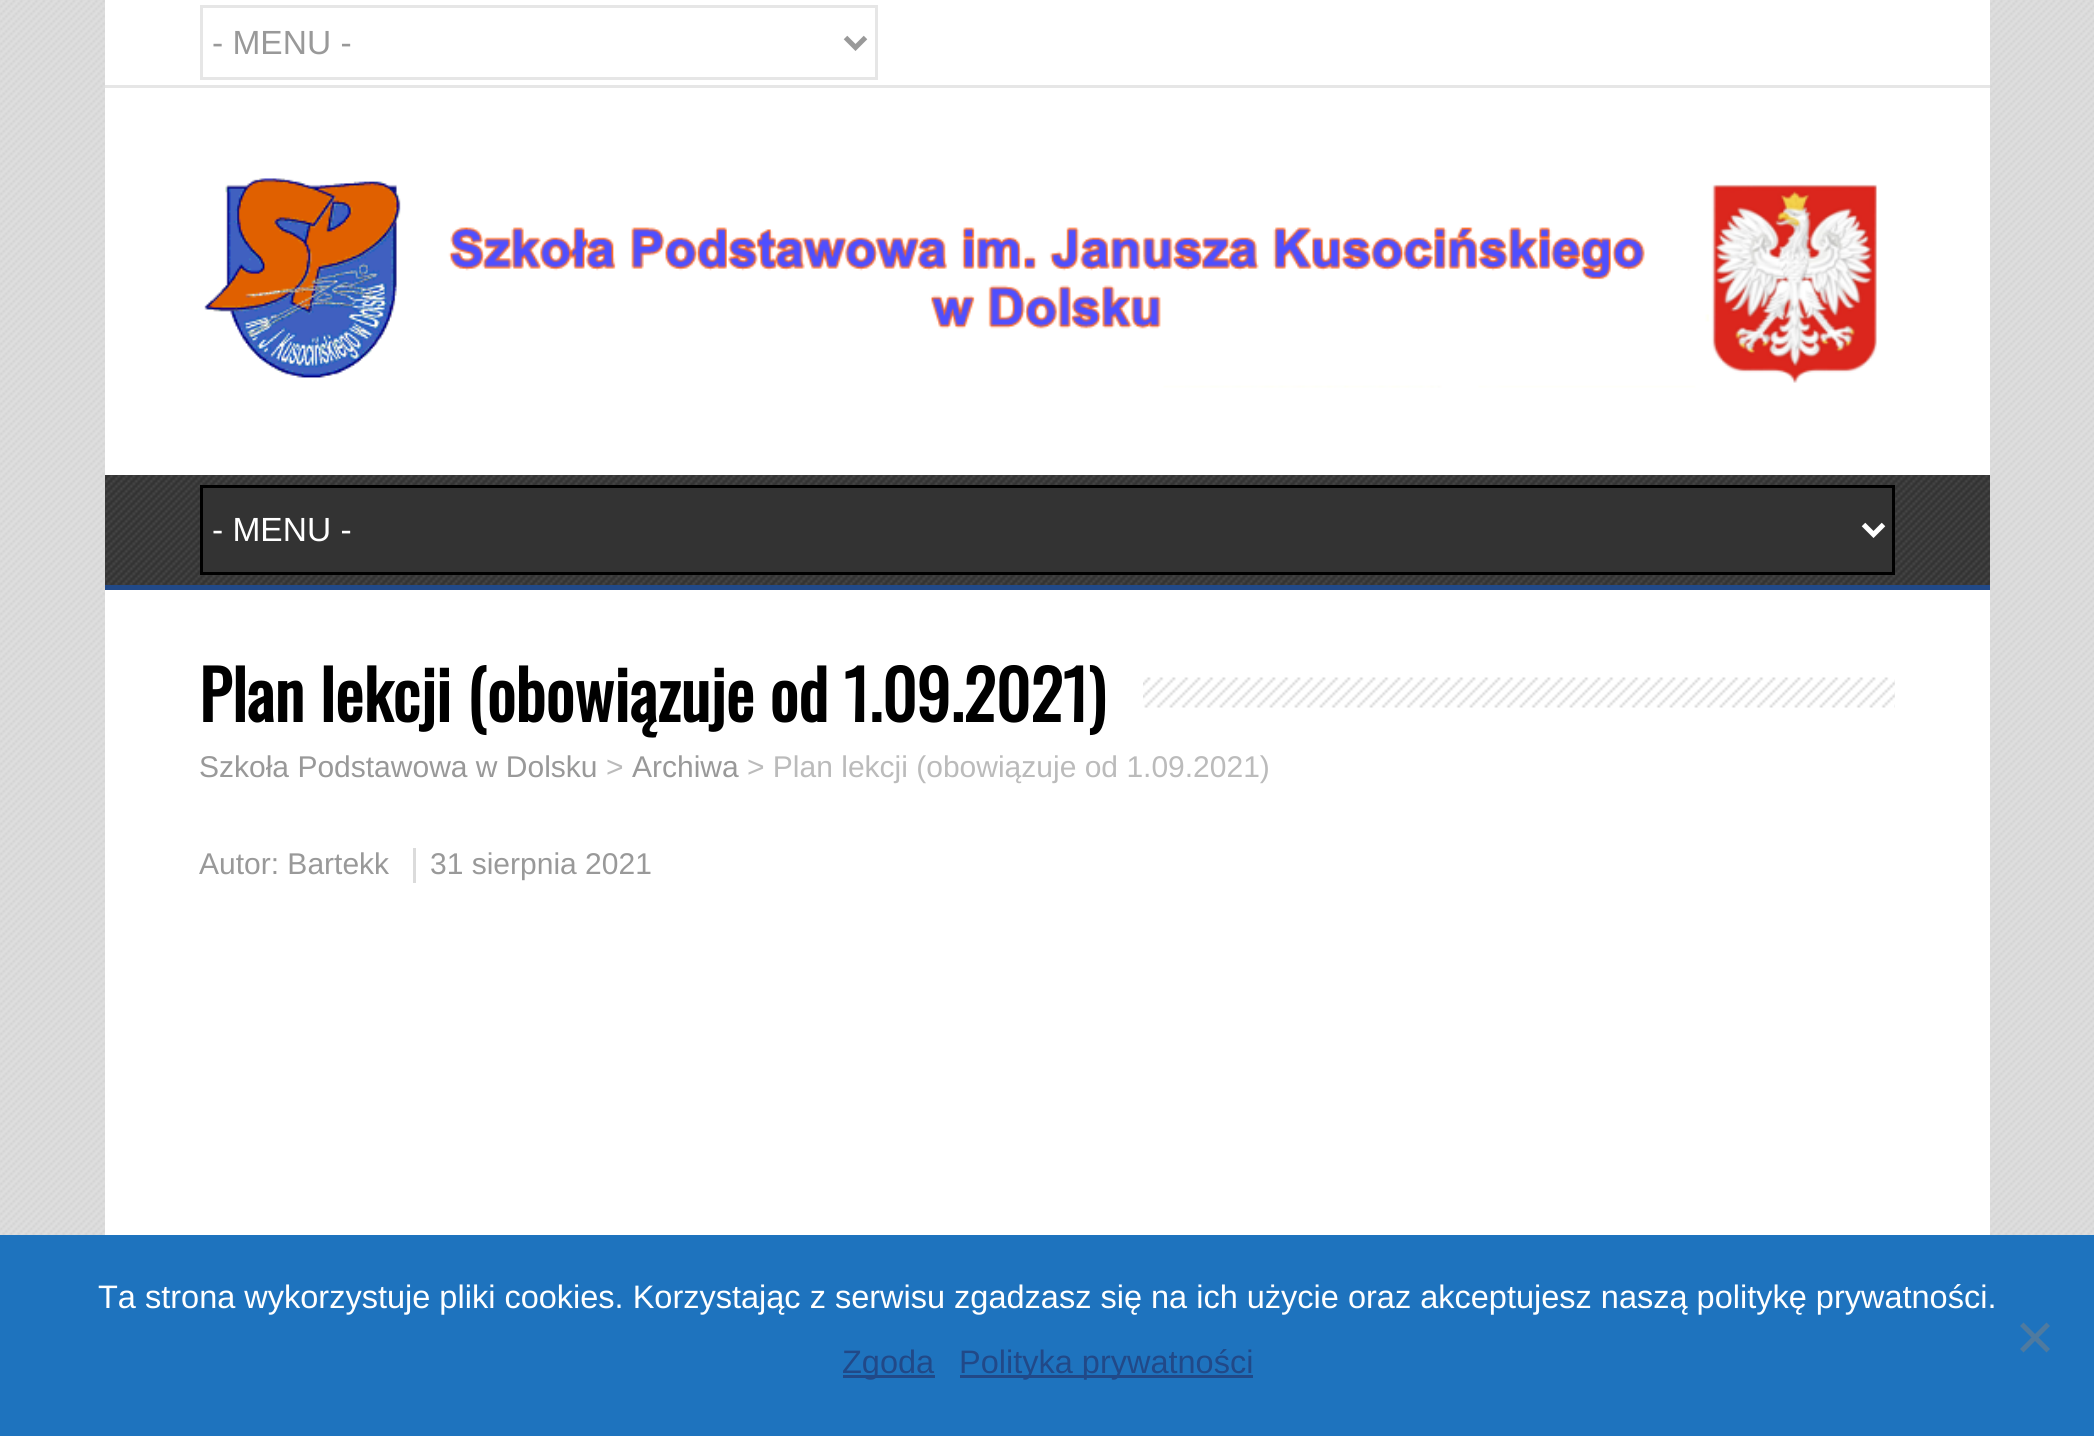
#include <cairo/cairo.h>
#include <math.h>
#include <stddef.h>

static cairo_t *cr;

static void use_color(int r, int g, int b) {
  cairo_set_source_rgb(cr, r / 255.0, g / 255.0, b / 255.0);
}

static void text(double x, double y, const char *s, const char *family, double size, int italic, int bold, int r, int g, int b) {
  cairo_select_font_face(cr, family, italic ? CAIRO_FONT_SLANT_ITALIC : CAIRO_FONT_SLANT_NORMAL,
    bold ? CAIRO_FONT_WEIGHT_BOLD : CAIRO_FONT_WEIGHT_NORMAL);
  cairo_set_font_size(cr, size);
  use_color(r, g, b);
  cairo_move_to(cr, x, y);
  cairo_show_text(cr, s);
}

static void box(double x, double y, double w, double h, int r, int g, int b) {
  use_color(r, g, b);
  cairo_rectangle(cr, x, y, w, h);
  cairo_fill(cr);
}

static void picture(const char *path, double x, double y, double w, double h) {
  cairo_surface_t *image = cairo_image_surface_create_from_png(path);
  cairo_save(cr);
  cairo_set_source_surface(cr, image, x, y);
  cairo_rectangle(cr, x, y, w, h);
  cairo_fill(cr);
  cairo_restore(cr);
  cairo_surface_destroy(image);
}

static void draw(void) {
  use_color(222, 222, 222);
  cairo_paint(cr);
  picture("img_01.png", 0, 0, 2094, 1235);
  box(105, 0, 1885, 475, 255, 255, 255);
  box(105, 85, 1885, 3, 230, 230, 230);
  cairo_rectangle(cr, 201.5, 6.5, 675, 72);
  cairo_set_line_width(cr, 3);
  cairo_stroke(cr);
  cairo_new_path(cr);
  cairo_move_to(cr, 845.5, 37.5);
  cairo_line_to(cr, 855.5, 47.5);
  cairo_line_to(cr, 865.5, 37.5);
  use_color(153, 153, 153);
  cairo_set_line_width(cr, 5);
  cairo_stroke(cr);
  picture("img_02.png", 204, 178, 1673, 210);
  box(105, 475, 1885, 110, 51, 51, 51);
  box(105, 585, 1885, 5, 33, 73, 136);
  picture("img_03.png", 105, 475, 1885, 110);
  use_color(51, 51, 51);
  cairo_rectangle(cr, 201.5, 486.5, 1692, 87);
  cairo_fill_preserve(cr);
  use_color(0, 0, 0);
  cairo_set_line_width(cr, 3);
  cairo_stroke(cr);
  cairo_new_path(cr);
  cairo_move_to(cr, 1863.5, 524.5);
  cairo_line_to(cr, 1873.5, 534.5);
  cairo_line_to(cr, 1883.5, 524.5);
  use_color(255, 255, 255);
  cairo_set_line_width(cr, 5);
  cairo_stroke(cr);
  box(105, 590, 1885, 645, 255, 255, 255);
  picture("img_04.png", 1143, 677, 752, 31);
  box(413, 848, 3, 35, 219, 219, 219);
  box(0, 1235, 2094, 201, 30, 115, 190);
  use_color(79, 122, 159);
  cairo_new_path(cr);
  cairo_move_to(cr, 2046.5, 1322.5);
  cairo_line_to(cr, 2050, 1326);
  cairo_line_to(cr, 2023.5, 1352.5);
  cairo_line_to(cr, 2020, 1349);
  cairo_close_path(cr);
  cairo_fill(cr);
  cairo_new_path(cr);
  cairo_move_to(cr, 2020, 1326);
  cairo_line_to(cr, 2023.5, 1322.5);
  cairo_line_to(cr, 2050, 1349);
  cairo_line_to(cr, 2046.5, 1352.5);
  cairo_close_path(cr);
  cairo_fill(cr);
  box(843, 1375, 92, 3, 33, 73, 136);
  box(960, 1375, 293, 3, 33, 73, 136);
  text(212, 54, "- MENU -", "Liberation Sans", 33.5, 0, 0, 153, 153, 153);
  text(212, 541, "- MENU -", "Liberation Sans", 33.5, 0, 0, 255, 255, 255);
  text(199, 722, "Plan lekcji (obowiązuje od 1.09.2021)", "Oswald", 67.5, 0, 1, 0, 0, 0);
  text(199, 777, "Szkoła Podstawowa w Dolsku", "Liberation Sans", 30, 0, 0, 153, 153, 153);
  text(606, 777, ">", "Liberation Sans", 30, 0, 0, 187, 187, 187);
  text(632, 777, "Archiwa", "Liberation Sans", 30, 0, 0, 153, 153, 153);
  text(747, 777, "> Plan lekcji (obowiązuje od 1.09.2021)", "Liberation Sans", 30, 0, 0, 187, 187, 187);
  text(199, 874, "Autor: Bartekk", "Liberation Sans", 30, 0, 0, 153, 153, 153);
  text(430, 874, "31 sierpnia 2021", "Liberation Sans", 30, 0, 0, 153, 153, 153);
  text(98, 1308, "Ta strona wykorzystuje pliki cookies. Korzystając z serwisu zgadzasz się na ich użycie oraz akceptujesz naszą politykę prywatności.", "Liberation Sans", 32.5, 0, 0, 255, 255, 255);
  text(842, 1373, "Zgoda", "Liberation Sans", 32.5, 0, 0, 33, 73, 136);
  text(959, 1373, "Polityka prywatności", "Liberation Sans", 32.5, 0, 0, 33, 73, 136);
}

int main(void) {
  cairo_surface_t *surface = cairo_image_surface_create(CAIRO_FORMAT_RGB24, 2094, 1436);
  cr = cairo_create(surface);
  cairo_font_options_t *options = cairo_font_options_create();
  cairo_font_options_set_hint_metrics(options, CAIRO_HINT_METRICS_OFF);
  cairo_font_options_set_hint_style(options, CAIRO_HINT_STYLE_NONE);
  cairo_set_font_options(cr, options);
  cairo_set_miter_limit(cr, 4);
  draw();
  cairo_surface_write_to_png(surface, "out.png");
  cairo_font_options_destroy(options);
  cairo_destroy(cr);
  cairo_surface_destroy(surface);
  return 0;
}
